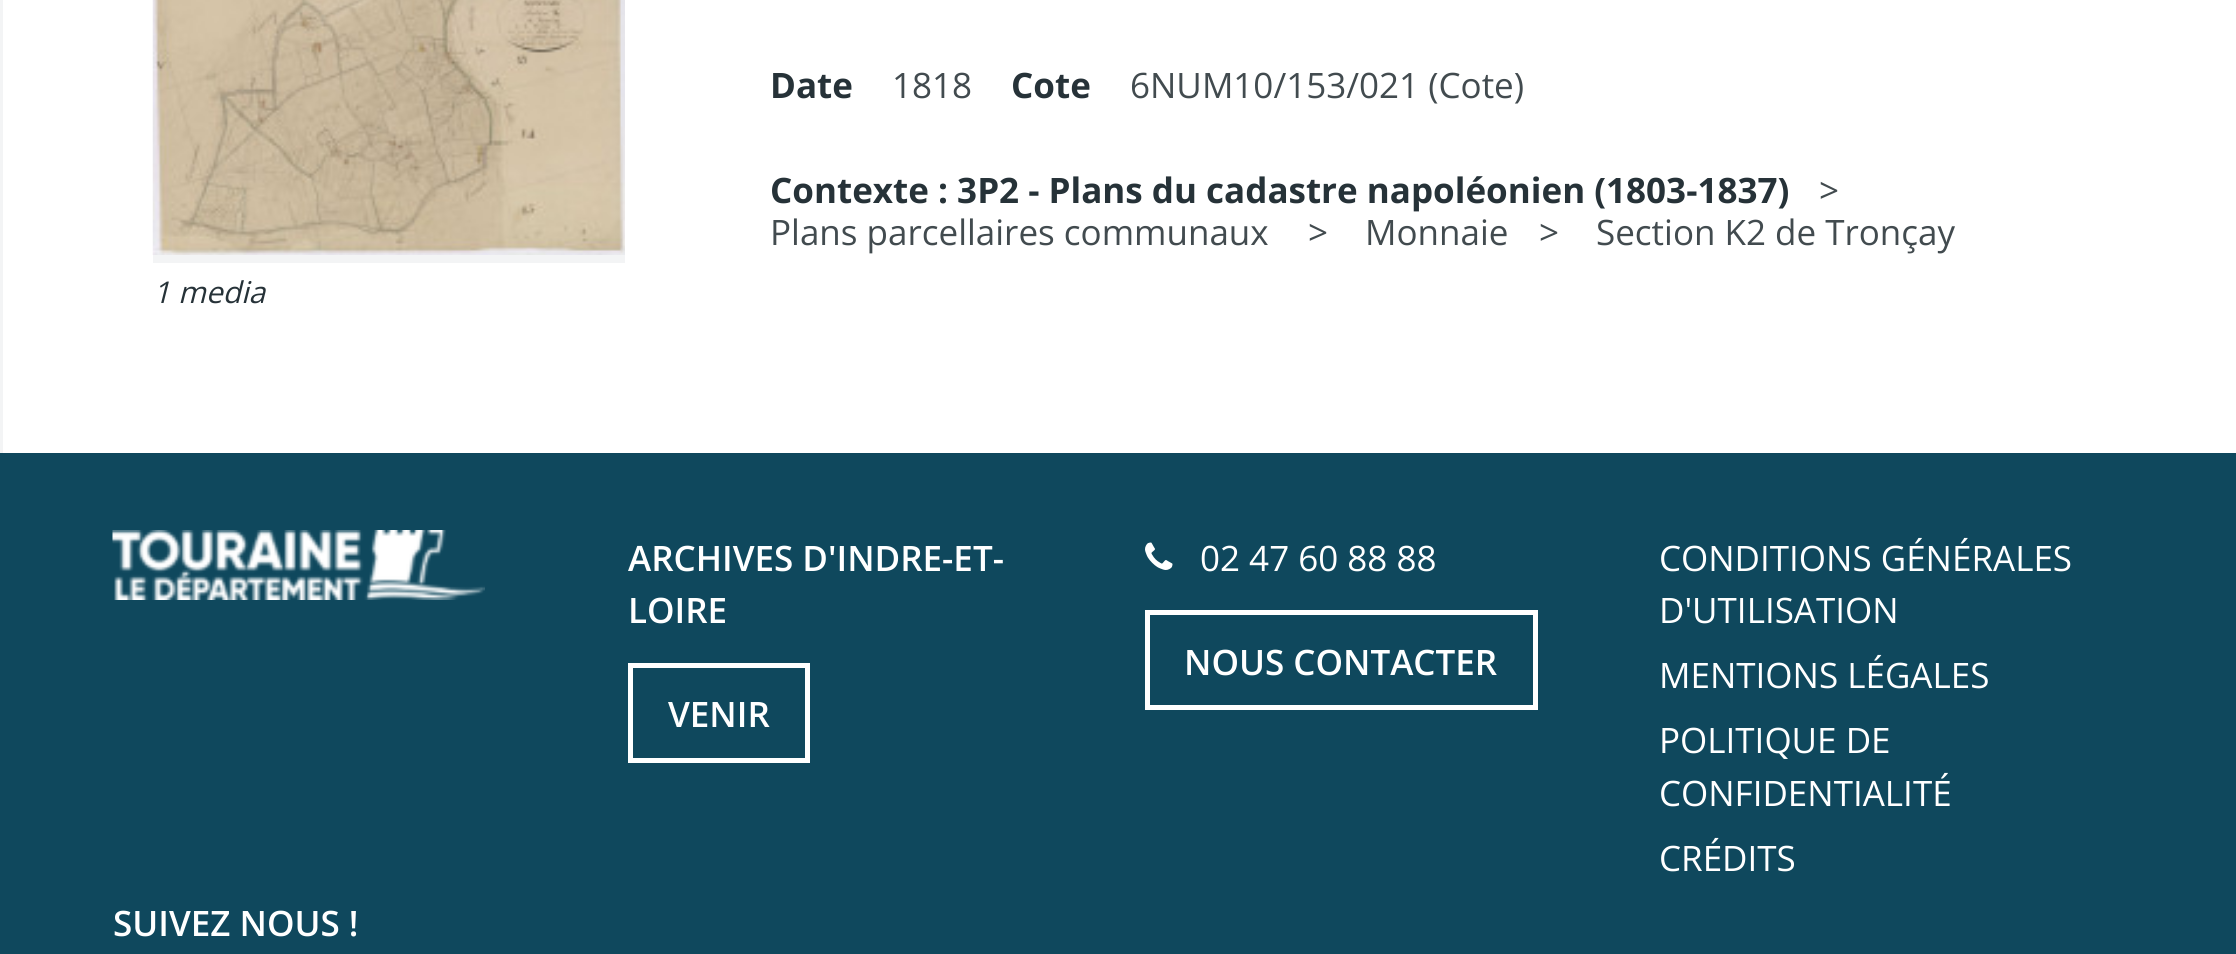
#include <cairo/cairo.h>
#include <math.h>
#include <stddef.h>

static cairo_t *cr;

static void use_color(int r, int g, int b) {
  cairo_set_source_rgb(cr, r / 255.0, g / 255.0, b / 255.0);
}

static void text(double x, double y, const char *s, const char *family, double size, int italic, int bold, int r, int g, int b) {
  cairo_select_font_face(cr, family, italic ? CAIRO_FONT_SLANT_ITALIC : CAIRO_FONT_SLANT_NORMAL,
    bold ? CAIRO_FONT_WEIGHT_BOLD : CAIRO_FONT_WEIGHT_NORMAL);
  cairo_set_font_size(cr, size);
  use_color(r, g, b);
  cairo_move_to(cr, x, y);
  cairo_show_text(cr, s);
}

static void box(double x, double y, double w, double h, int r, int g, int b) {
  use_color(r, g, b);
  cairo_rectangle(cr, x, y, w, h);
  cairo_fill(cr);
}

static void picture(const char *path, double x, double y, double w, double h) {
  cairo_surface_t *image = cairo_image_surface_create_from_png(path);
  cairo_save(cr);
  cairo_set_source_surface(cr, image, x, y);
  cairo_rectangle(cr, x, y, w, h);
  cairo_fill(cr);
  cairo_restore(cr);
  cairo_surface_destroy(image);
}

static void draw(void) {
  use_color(255, 255, 255);
  cairo_paint(cr);
  box(0, 0, 3, 453, 243, 244, 245);
  box(153, 255, 472, 8, 243, 244, 245);
  picture("img_01.png", 152, 0, 473, 255);
  box(0, 453, 2236, 501, 15, 72, 93);
  picture("img_02.png", 112, 530, 373, 70);
  cairo_rectangle(cr, 630.5, 665.5, 177, 95);
  use_color(255, 255, 255);
  cairo_set_line_width(cr, 5);
  cairo_stroke(cr);
  picture("img_03.png", 1145, 542, 28, 28);
  cairo_rectangle(cr, 1147.5, 612.5, 388, 95);
  cairo_stroke(cr);
  text(770, 98, "Date", "Open Sans", 35, 0, 1, 38, 50, 56);
  text(892, 98, "1818", "Open Sans", 35, 0, 0, 66, 75, 79);
  text(1011, 98, "Cote", "Open Sans", 35, 0, 1, 38, 50, 56);
  text(1130, 98, "6NUM10/153/021 (Cote)", "Open Sans", 35, 0, 0, 66, 75, 79);
  text(770, 203, "Contexte : 3P2 - Plans du cadastre napoléonien (1803-1837)", "Open Sans", 35, 0, 1, 38, 50, 56);
  text(1819, 203, ">", "Open Sans", 35, 0, 0, 66, 75, 79);
  text(770, 245, "Plans parcellaires communaux", "Open Sans", 35, 0, 0, 66, 75, 79);
  text(1308, 245, ">", "Open Sans", 35, 0, 0, 66, 75, 79);
  text(1365, 245, "Monnaie", "Open Sans", 35, 0, 0, 66, 75, 79);
  text(1539, 245, ">", "Open Sans", 35, 0, 0, 66, 75, 79);
  text(1596, 245, "Section K2 de Tronçay", "Open Sans", 35, 0, 0, 66, 75, 79);
  text(153, 303, "1 media", "Open Sans", 30, 1, 0, 38, 50, 56);
  text(628, 571, "ARCHIVES D'INDRE-ET-", "Open Sans SemiBold", 35, 0, 0, 255, 255, 255);
  text(628, 623, "LOIRE", "Open Sans SemiBold", 35, 0, 0, 255, 255, 255);
  text(668, 727, "VENIR", "Open Sans SemiBold", 35, 0, 0, 255, 255, 255);
  text(1200, 571, "02 47 60 88 88", "Open Sans", 35, 0, 0, 255, 255, 255);
  text(1184, 675, "NOUS CONTACTER", "Open Sans SemiBold", 35, 0, 0, 255, 255, 255);
  text(1659, 571, "CONDITIONS GÉNÉRALES", "Open Sans", 35, 0, 0, 255, 255, 255);
  text(1659, 623, "D'UTILISATION", "Open Sans", 35, 0, 0, 255, 255, 255);
  text(1659, 688, "MENTIONS LÉGALES", "Open Sans", 35, 0, 0, 255, 255, 255);
  text(1659, 753, "POLITIQUE DE", "Open Sans", 35, 0, 0, 255, 255, 255);
  text(1659, 806, "CONFIDENTIALITÉ", "Open Sans", 35, 0, 0, 255, 255, 255);
  text(1659, 871, "CRÉDITS", "Open Sans", 35, 0, 0, 255, 255, 255);
  text(113, 936, "SUIVEZ NOUS !", "Open Sans SemiBold", 35, 0, 0, 255, 255, 255);
}

int main(void) {
  cairo_surface_t *surface = cairo_image_surface_create(CAIRO_FORMAT_RGB24, 2236, 954);
  cr = cairo_create(surface);
  cairo_font_options_t *options = cairo_font_options_create();
  cairo_font_options_set_hint_metrics(options, CAIRO_HINT_METRICS_OFF);
  cairo_font_options_set_hint_style(options, CAIRO_HINT_STYLE_NONE);
  cairo_set_font_options(cr, options);
  cairo_set_miter_limit(cr, 4);
  draw();
  cairo_surface_write_to_png(surface, "out.png");
  cairo_font_options_destroy(options);
  cairo_destroy(cr);
  cairo_surface_destroy(surface);
  return 0;
}
